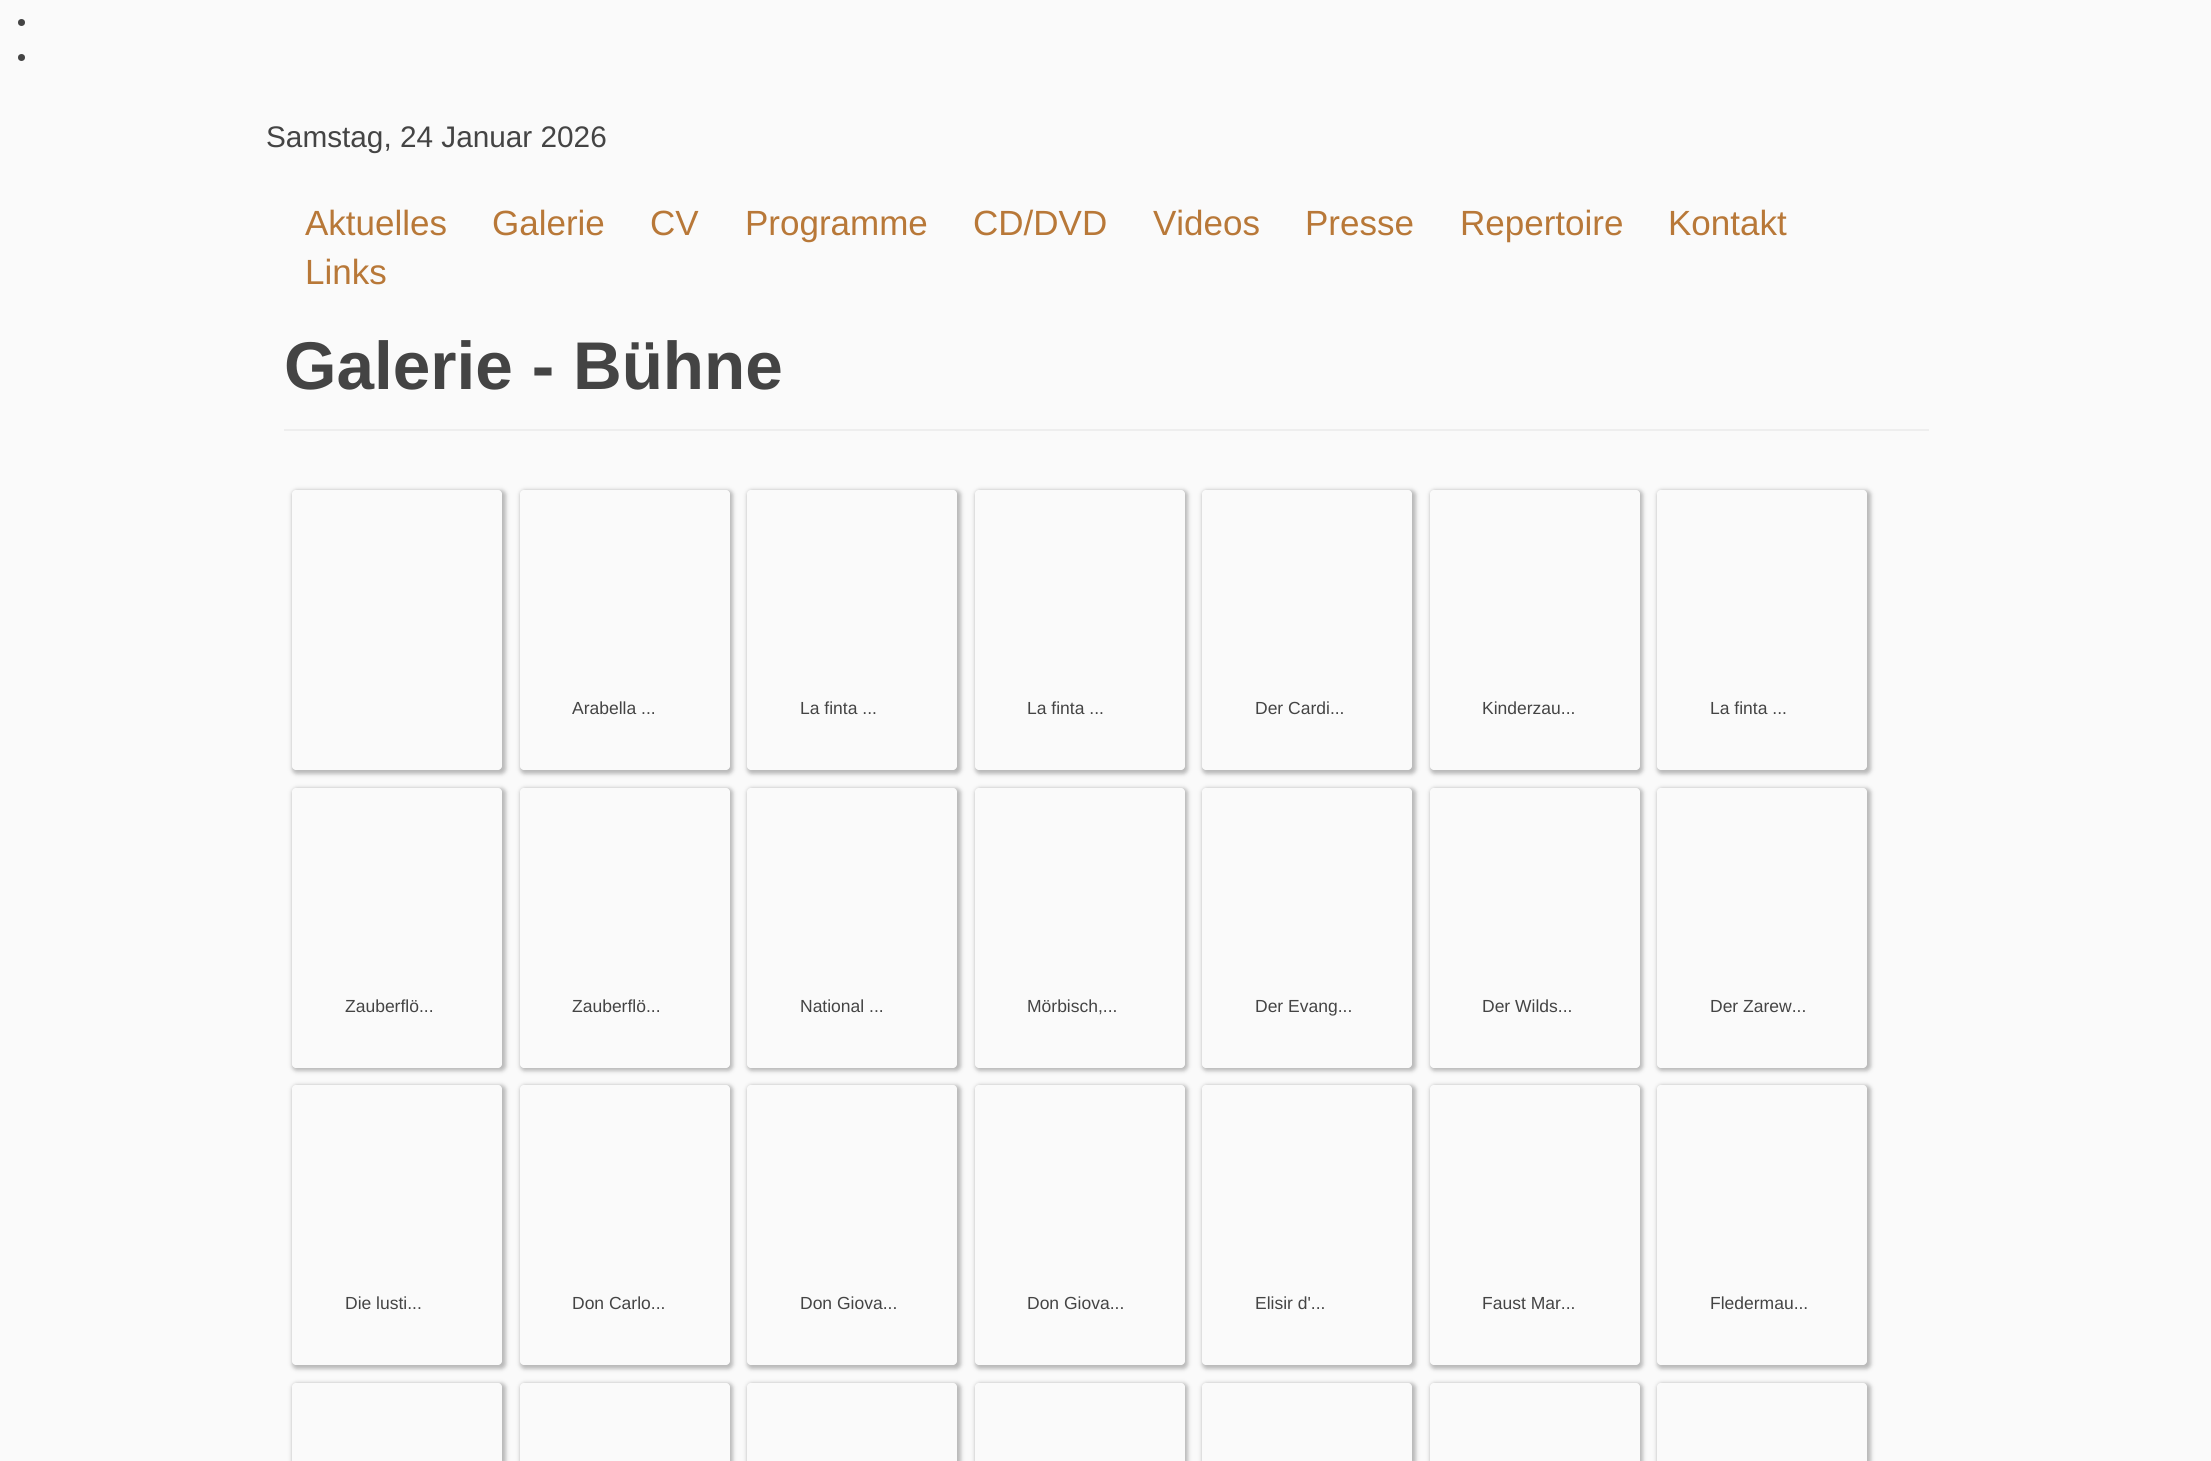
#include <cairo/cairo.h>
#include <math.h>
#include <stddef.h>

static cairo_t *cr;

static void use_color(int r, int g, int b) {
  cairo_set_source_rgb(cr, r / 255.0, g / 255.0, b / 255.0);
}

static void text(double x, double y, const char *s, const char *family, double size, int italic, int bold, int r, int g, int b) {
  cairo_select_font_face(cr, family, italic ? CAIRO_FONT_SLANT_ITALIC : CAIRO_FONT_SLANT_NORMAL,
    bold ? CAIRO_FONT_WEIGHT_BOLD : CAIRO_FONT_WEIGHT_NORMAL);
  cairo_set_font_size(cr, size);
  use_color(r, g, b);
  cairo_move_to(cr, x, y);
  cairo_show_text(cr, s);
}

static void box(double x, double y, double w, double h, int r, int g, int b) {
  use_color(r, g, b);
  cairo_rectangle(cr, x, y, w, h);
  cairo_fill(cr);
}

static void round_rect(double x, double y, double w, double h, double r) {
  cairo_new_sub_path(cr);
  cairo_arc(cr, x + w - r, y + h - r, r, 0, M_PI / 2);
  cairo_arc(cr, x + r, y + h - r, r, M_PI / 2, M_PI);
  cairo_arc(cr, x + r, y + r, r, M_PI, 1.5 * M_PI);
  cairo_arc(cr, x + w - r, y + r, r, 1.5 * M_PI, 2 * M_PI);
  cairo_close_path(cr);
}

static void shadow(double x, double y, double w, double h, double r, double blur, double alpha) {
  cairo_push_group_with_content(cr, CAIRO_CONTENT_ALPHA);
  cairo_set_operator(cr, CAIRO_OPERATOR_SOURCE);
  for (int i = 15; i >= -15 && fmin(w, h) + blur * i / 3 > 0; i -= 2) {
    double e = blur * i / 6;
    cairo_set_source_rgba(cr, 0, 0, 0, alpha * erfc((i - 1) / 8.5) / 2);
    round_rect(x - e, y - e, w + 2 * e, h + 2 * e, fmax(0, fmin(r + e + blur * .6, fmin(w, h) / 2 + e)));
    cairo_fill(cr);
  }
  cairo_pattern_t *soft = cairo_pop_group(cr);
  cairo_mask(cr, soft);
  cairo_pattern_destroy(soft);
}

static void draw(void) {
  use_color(250, 250, 250);
  cairo_paint(cr);
  use_color(68, 68, 68);
  cairo_arc(cr, 21.5, 22.5, 3.5, 0, 2 * M_PI);
  cairo_fill(cr);
  cairo_arc(cr, 21.5, 57.5, 3.5, 0, 2 * M_PI);
  cairo_fill(cr);
  box(284, 429, 1645, 2, 238, 238, 238);
  cairo_save(cr);
  cairo_set_fill_rule(cr, CAIRO_FILL_RULE_EVEN_ODD);
  cairo_new_path(cr);
  cairo_move_to(cr, 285, 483);
  cairo_line_to(cr, 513, 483);
  cairo_line_to(cr, 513, 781);
  cairo_line_to(cr, 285, 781);
  cairo_close_path(cr);
  cairo_move_to(cr, 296, 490);
  cairo_line_to(cr, 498, 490);
  cairo_curve_to(cr, 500, 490, 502, 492, 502, 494);
  cairo_line_to(cr, 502, 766);
  cairo_curve_to(cr, 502, 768, 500, 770, 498, 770);
  cairo_line_to(cr, 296, 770);
  cairo_curve_to(cr, 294, 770, 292, 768, 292, 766);
  cairo_line_to(cr, 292, 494);
  cairo_curve_to(cr, 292, 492, 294, 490, 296, 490);
  cairo_close_path(cr);
  cairo_clip(cr);
  use_color(120, 120, 120);
  shadow(292, 490, 214, 284, 5, 2, 0.5);
  cairo_restore(cr);
  cairo_save(cr);
  cairo_set_fill_rule(cr, CAIRO_FILL_RULE_EVEN_ODD);
  cairo_new_path(cr);
  cairo_move_to(cr, 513, 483);
  cairo_line_to(cr, 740, 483);
  cairo_line_to(cr, 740, 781);
  cairo_line_to(cr, 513, 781);
  cairo_close_path(cr);
  cairo_move_to(cr, 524, 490);
  cairo_line_to(cr, 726, 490);
  cairo_curve_to(cr, 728, 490, 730, 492, 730, 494);
  cairo_line_to(cr, 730, 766);
  cairo_curve_to(cr, 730, 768, 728, 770, 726, 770);
  cairo_line_to(cr, 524, 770);
  cairo_curve_to(cr, 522, 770, 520, 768, 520, 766);
  cairo_line_to(cr, 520, 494);
  cairo_curve_to(cr, 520, 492, 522, 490, 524, 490);
  cairo_close_path(cr);
  cairo_clip(cr);
  use_color(120, 120, 120);
  shadow(520, 490, 213, 284, 5, 2, 0.5);
  cairo_restore(cr);
  cairo_save(cr);
  cairo_set_fill_rule(cr, CAIRO_FILL_RULE_EVEN_ODD);
  cairo_new_path(cr);
  cairo_move_to(cr, 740, 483);
  cairo_line_to(cr, 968, 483);
  cairo_line_to(cr, 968, 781);
  cairo_line_to(cr, 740, 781);
  cairo_close_path(cr);
  cairo_move_to(cr, 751, 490);
  cairo_line_to(cr, 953, 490);
  cairo_curve_to(cr, 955, 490, 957, 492, 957, 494);
  cairo_line_to(cr, 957, 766);
  cairo_curve_to(cr, 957, 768, 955, 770, 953, 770);
  cairo_line_to(cr, 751, 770);
  cairo_curve_to(cr, 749, 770, 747, 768, 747, 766);
  cairo_line_to(cr, 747, 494);
  cairo_curve_to(cr, 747, 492, 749, 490, 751, 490);
  cairo_close_path(cr);
  cairo_clip(cr);
  use_color(120, 120, 120);
  shadow(747, 490, 214, 284, 5, 2, 0.5);
  cairo_restore(cr);
  cairo_save(cr);
  cairo_set_fill_rule(cr, CAIRO_FILL_RULE_EVEN_ODD);
  cairo_new_path(cr);
  cairo_move_to(cr, 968, 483);
  cairo_line_to(cr, 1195, 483);
  cairo_line_to(cr, 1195, 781);
  cairo_line_to(cr, 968, 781);
  cairo_close_path(cr);
  cairo_move_to(cr, 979, 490);
  cairo_line_to(cr, 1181, 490);
  cairo_curve_to(cr, 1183, 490, 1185, 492, 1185, 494);
  cairo_line_to(cr, 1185, 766);
  cairo_curve_to(cr, 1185, 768, 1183, 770, 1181, 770);
  cairo_line_to(cr, 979, 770);
  cairo_curve_to(cr, 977, 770, 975, 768, 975, 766);
  cairo_line_to(cr, 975, 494);
  cairo_curve_to(cr, 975, 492, 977, 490, 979, 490);
  cairo_close_path(cr);
  cairo_clip(cr);
  use_color(120, 120, 120);
  shadow(975, 490, 213, 284, 5, 2, 0.5);
  cairo_restore(cr);
  cairo_save(cr);
  cairo_set_fill_rule(cr, CAIRO_FILL_RULE_EVEN_ODD);
  cairo_new_path(cr);
  cairo_move_to(cr, 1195, 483);
  cairo_line_to(cr, 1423, 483);
  cairo_line_to(cr, 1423, 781);
  cairo_line_to(cr, 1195, 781);
  cairo_close_path(cr);
  cairo_move_to(cr, 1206, 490);
  cairo_line_to(cr, 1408, 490);
  cairo_curve_to(cr, 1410, 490, 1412, 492, 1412, 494);
  cairo_line_to(cr, 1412, 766);
  cairo_curve_to(cr, 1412, 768, 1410, 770, 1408, 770);
  cairo_line_to(cr, 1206, 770);
  cairo_curve_to(cr, 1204, 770, 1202, 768, 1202, 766);
  cairo_line_to(cr, 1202, 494);
  cairo_curve_to(cr, 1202, 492, 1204, 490, 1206, 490);
  cairo_close_path(cr);
  cairo_clip(cr);
  use_color(120, 120, 120);
  shadow(1202, 490, 214, 284, 5, 2, 0.5);
  cairo_restore(cr);
  cairo_save(cr);
  cairo_set_fill_rule(cr, CAIRO_FILL_RULE_EVEN_ODD);
  cairo_new_path(cr);
  cairo_move_to(cr, 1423, 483);
  cairo_line_to(cr, 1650, 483);
  cairo_line_to(cr, 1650, 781);
  cairo_line_to(cr, 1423, 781);
  cairo_close_path(cr);
  cairo_move_to(cr, 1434, 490);
  cairo_line_to(cr, 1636, 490);
  cairo_curve_to(cr, 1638, 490, 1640, 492, 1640, 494);
  cairo_line_to(cr, 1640, 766);
  cairo_curve_to(cr, 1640, 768, 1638, 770, 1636, 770);
  cairo_line_to(cr, 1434, 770);
  cairo_curve_to(cr, 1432, 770, 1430, 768, 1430, 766);
  cairo_line_to(cr, 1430, 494);
  cairo_curve_to(cr, 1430, 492, 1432, 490, 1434, 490);
  cairo_close_path(cr);
  cairo_clip(cr);
  use_color(120, 120, 120);
  shadow(1430, 490, 213, 284, 5, 2, 0.5);
  cairo_restore(cr);
  cairo_save(cr);
  cairo_set_fill_rule(cr, CAIRO_FILL_RULE_EVEN_ODD);
  cairo_new_path(cr);
  cairo_move_to(cr, 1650, 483);
  cairo_line_to(cr, 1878, 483);
  cairo_line_to(cr, 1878, 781);
  cairo_line_to(cr, 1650, 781);
  cairo_close_path(cr);
  cairo_move_to(cr, 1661, 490);
  cairo_line_to(cr, 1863, 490);
  cairo_curve_to(cr, 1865, 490, 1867, 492, 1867, 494);
  cairo_line_to(cr, 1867, 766);
  cairo_curve_to(cr, 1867, 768, 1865, 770, 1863, 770);
  cairo_line_to(cr, 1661, 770);
  cairo_curve_to(cr, 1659, 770, 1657, 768, 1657, 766);
  cairo_line_to(cr, 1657, 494);
  cairo_curve_to(cr, 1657, 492, 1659, 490, 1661, 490);
  cairo_close_path(cr);
  cairo_clip(cr);
  use_color(120, 120, 120);
  shadow(1657, 490, 214, 284, 5, 2, 0.5);
  cairo_restore(cr);
  cairo_save(cr);
  cairo_set_fill_rule(cr, CAIRO_FILL_RULE_EVEN_ODD);
  cairo_new_path(cr);
  cairo_move_to(cr, 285, 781);
  cairo_line_to(cr, 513, 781);
  cairo_line_to(cr, 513, 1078);
  cairo_line_to(cr, 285, 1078);
  cairo_close_path(cr);
  cairo_move_to(cr, 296, 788);
  cairo_line_to(cr, 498, 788);
  cairo_curve_to(cr, 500, 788, 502, 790, 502, 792);
  cairo_line_to(cr, 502, 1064);
  cairo_curve_to(cr, 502, 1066, 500, 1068, 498, 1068);
  cairo_line_to(cr, 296, 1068);
  cairo_curve_to(cr, 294, 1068, 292, 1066, 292, 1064);
  cairo_line_to(cr, 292, 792);
  cairo_curve_to(cr, 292, 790, 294, 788, 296, 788);
  cairo_close_path(cr);
  cairo_clip(cr);
  use_color(120, 120, 120);
  shadow(292, 788, 214, 283, 5, 2, 0.5);
  cairo_restore(cr);
  cairo_save(cr);
  cairo_set_fill_rule(cr, CAIRO_FILL_RULE_EVEN_ODD);
  cairo_new_path(cr);
  cairo_move_to(cr, 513, 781);
  cairo_line_to(cr, 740, 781);
  cairo_line_to(cr, 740, 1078);
  cairo_line_to(cr, 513, 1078);
  cairo_close_path(cr);
  cairo_move_to(cr, 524, 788);
  cairo_line_to(cr, 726, 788);
  cairo_curve_to(cr, 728, 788, 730, 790, 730, 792);
  cairo_line_to(cr, 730, 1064);
  cairo_curve_to(cr, 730, 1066, 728, 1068, 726, 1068);
  cairo_line_to(cr, 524, 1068);
  cairo_curve_to(cr, 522, 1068, 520, 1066, 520, 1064);
  cairo_line_to(cr, 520, 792);
  cairo_curve_to(cr, 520, 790, 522, 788, 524, 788);
  cairo_close_path(cr);
  cairo_clip(cr);
  use_color(120, 120, 120);
  shadow(520, 788, 213, 283, 5, 2, 0.5);
  cairo_restore(cr);
  cairo_save(cr);
  cairo_set_fill_rule(cr, CAIRO_FILL_RULE_EVEN_ODD);
  cairo_new_path(cr);
  cairo_move_to(cr, 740, 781);
  cairo_line_to(cr, 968, 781);
  cairo_line_to(cr, 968, 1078);
  cairo_line_to(cr, 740, 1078);
  cairo_close_path(cr);
  cairo_move_to(cr, 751, 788);
  cairo_line_to(cr, 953, 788);
  cairo_curve_to(cr, 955, 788, 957, 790, 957, 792);
  cairo_line_to(cr, 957, 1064);
  cairo_curve_to(cr, 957, 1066, 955, 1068, 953, 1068);
  cairo_line_to(cr, 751, 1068);
  cairo_curve_to(cr, 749, 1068, 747, 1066, 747, 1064);
  cairo_line_to(cr, 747, 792);
  cairo_curve_to(cr, 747, 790, 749, 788, 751, 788);
  cairo_close_path(cr);
  cairo_clip(cr);
  use_color(120, 120, 120);
  shadow(747, 788, 214, 283, 5, 2, 0.5);
  cairo_restore(cr);
  cairo_save(cr);
  cairo_set_fill_rule(cr, CAIRO_FILL_RULE_EVEN_ODD);
  cairo_new_path(cr);
  cairo_move_to(cr, 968, 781);
  cairo_line_to(cr, 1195, 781);
  cairo_line_to(cr, 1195, 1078);
  cairo_line_to(cr, 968, 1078);
  cairo_close_path(cr);
  cairo_move_to(cr, 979, 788);
  cairo_line_to(cr, 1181, 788);
  cairo_curve_to(cr, 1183, 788, 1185, 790, 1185, 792);
  cairo_line_to(cr, 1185, 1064);
  cairo_curve_to(cr, 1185, 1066, 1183, 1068, 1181, 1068);
  cairo_line_to(cr, 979, 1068);
  cairo_curve_to(cr, 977, 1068, 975, 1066, 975, 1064);
  cairo_line_to(cr, 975, 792);
  cairo_curve_to(cr, 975, 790, 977, 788, 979, 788);
  cairo_close_path(cr);
  cairo_clip(cr);
  use_color(120, 120, 120);
  shadow(975, 788, 213, 283, 5, 2, 0.5);
  cairo_restore(cr);
  cairo_save(cr);
  cairo_set_fill_rule(cr, CAIRO_FILL_RULE_EVEN_ODD);
  cairo_new_path(cr);
  cairo_move_to(cr, 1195, 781);
  cairo_line_to(cr, 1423, 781);
  cairo_line_to(cr, 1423, 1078);
  cairo_line_to(cr, 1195, 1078);
  cairo_close_path(cr);
  cairo_move_to(cr, 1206, 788);
  cairo_line_to(cr, 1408, 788);
  cairo_curve_to(cr, 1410, 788, 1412, 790, 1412, 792);
  cairo_line_to(cr, 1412, 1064);
  cairo_curve_to(cr, 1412, 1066, 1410, 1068, 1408, 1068);
  cairo_line_to(cr, 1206, 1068);
  cairo_curve_to(cr, 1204, 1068, 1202, 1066, 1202, 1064);
  cairo_line_to(cr, 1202, 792);
  cairo_curve_to(cr, 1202, 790, 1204, 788, 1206, 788);
  cairo_close_path(cr);
  cairo_clip(cr);
  use_color(120, 120, 120);
  shadow(1202, 788, 214, 283, 5, 2, 0.5);
  cairo_restore(cr);
  cairo_save(cr);
  cairo_set_fill_rule(cr, CAIRO_FILL_RULE_EVEN_ODD);
  cairo_new_path(cr);
  cairo_move_to(cr, 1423, 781);
  cairo_line_to(cr, 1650, 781);
  cairo_line_to(cr, 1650, 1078);
  cairo_line_to(cr, 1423, 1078);
  cairo_close_path(cr);
  cairo_move_to(cr, 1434, 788);
  cairo_line_to(cr, 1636, 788);
  cairo_curve_to(cr, 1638, 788, 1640, 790, 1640, 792);
  cairo_line_to(cr, 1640, 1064);
  cairo_curve_to(cr, 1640, 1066, 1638, 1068, 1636, 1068);
  cairo_line_to(cr, 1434, 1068);
  cairo_curve_to(cr, 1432, 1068, 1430, 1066, 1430, 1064);
  cairo_line_to(cr, 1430, 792);
  cairo_curve_to(cr, 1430, 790, 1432, 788, 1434, 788);
  cairo_close_path(cr);
  cairo_clip(cr);
  use_color(120, 120, 120);
  shadow(1430, 788, 213, 283, 5, 2, 0.5);
  cairo_restore(cr);
  cairo_save(cr);
  cairo_set_fill_rule(cr, CAIRO_FILL_RULE_EVEN_ODD);
  cairo_new_path(cr);
  cairo_move_to(cr, 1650, 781);
  cairo_line_to(cr, 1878, 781);
  cairo_line_to(cr, 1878, 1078);
  cairo_line_to(cr, 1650, 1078);
  cairo_close_path(cr);
  cairo_move_to(cr, 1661, 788);
  cairo_line_to(cr, 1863, 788);
  cairo_curve_to(cr, 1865, 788, 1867, 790, 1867, 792);
  cairo_line_to(cr, 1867, 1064);
  cairo_curve_to(cr, 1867, 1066, 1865, 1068, 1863, 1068);
  cairo_line_to(cr, 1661, 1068);
  cairo_curve_to(cr, 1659, 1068, 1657, 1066, 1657, 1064);
  cairo_line_to(cr, 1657, 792);
  cairo_curve_to(cr, 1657, 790, 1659, 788, 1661, 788);
  cairo_close_path(cr);
  cairo_clip(cr);
  use_color(120, 120, 120);
  shadow(1657, 788, 214, 283, 5, 2, 0.5);
  cairo_restore(cr);
  cairo_save(cr);
  cairo_set_fill_rule(cr, CAIRO_FILL_RULE_EVEN_ODD);
  cairo_new_path(cr);
  cairo_move_to(cr, 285, 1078);
  cairo_line_to(cr, 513, 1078);
  cairo_line_to(cr, 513, 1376);
  cairo_line_to(cr, 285, 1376);
  cairo_close_path(cr);
  cairo_move_to(cr, 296, 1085);
  cairo_line_to(cr, 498, 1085);
  cairo_curve_to(cr, 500, 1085, 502, 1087, 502, 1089);
  cairo_line_to(cr, 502, 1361);
  cairo_curve_to(cr, 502, 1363, 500, 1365, 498, 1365);
  cairo_line_to(cr, 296, 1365);
  cairo_curve_to(cr, 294, 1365, 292, 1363, 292, 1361);
  cairo_line_to(cr, 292, 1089);
  cairo_curve_to(cr, 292, 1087, 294, 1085, 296, 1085);
  cairo_close_path(cr);
  cairo_clip(cr);
  use_color(120, 120, 120);
  shadow(292, 1085, 214, 284, 5, 2, 0.5);
  cairo_restore(cr);
  cairo_save(cr);
  cairo_set_fill_rule(cr, CAIRO_FILL_RULE_EVEN_ODD);
  cairo_new_path(cr);
  cairo_move_to(cr, 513, 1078);
  cairo_line_to(cr, 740, 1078);
  cairo_line_to(cr, 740, 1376);
  cairo_line_to(cr, 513, 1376);
  cairo_close_path(cr);
  cairo_move_to(cr, 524, 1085);
  cairo_line_to(cr, 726, 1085);
  cairo_curve_to(cr, 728, 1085, 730, 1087, 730, 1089);
  cairo_line_to(cr, 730, 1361);
  cairo_curve_to(cr, 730, 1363, 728, 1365, 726, 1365);
  cairo_line_to(cr, 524, 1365);
  cairo_curve_to(cr, 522, 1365, 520, 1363, 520, 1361);
  cairo_line_to(cr, 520, 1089);
  cairo_curve_to(cr, 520, 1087, 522, 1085, 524, 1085);
  cairo_close_path(cr);
  cairo_clip(cr);
  use_color(120, 120, 120);
  shadow(520, 1085, 213, 284, 5, 2, 0.5);
  cairo_restore(cr);
  cairo_save(cr);
  cairo_set_fill_rule(cr, CAIRO_FILL_RULE_EVEN_ODD);
  cairo_new_path(cr);
  cairo_move_to(cr, 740, 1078);
  cairo_line_to(cr, 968, 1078);
  cairo_line_to(cr, 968, 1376);
  cairo_line_to(cr, 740, 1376);
  cairo_close_path(cr);
  cairo_move_to(cr, 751, 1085);
  cairo_line_to(cr, 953, 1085);
  cairo_curve_to(cr, 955, 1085, 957, 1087, 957, 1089);
  cairo_line_to(cr, 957, 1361);
  cairo_curve_to(cr, 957, 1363, 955, 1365, 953, 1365);
  cairo_line_to(cr, 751, 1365);
  cairo_curve_to(cr, 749, 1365, 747, 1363, 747, 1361);
  cairo_line_to(cr, 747, 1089);
  cairo_curve_to(cr, 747, 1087, 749, 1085, 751, 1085);
  cairo_close_path(cr);
  cairo_clip(cr);
  use_color(120, 120, 120);
  shadow(747, 1085, 214, 284, 5, 2, 0.5);
  cairo_restore(cr);
  cairo_save(cr);
  cairo_set_fill_rule(cr, CAIRO_FILL_RULE_EVEN_ODD);
  cairo_new_path(cr);
  cairo_move_to(cr, 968, 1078);
  cairo_line_to(cr, 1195, 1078);
  cairo_line_to(cr, 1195, 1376);
  cairo_line_to(cr, 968, 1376);
  cairo_close_path(cr);
  cairo_move_to(cr, 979, 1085);
  cairo_line_to(cr, 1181, 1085);
  cairo_curve_to(cr, 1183, 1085, 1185, 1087, 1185, 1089);
  cairo_line_to(cr, 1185, 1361);
  cairo_curve_to(cr, 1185, 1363, 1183, 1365, 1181, 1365);
  cairo_line_to(cr, 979, 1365);
  cairo_curve_to(cr, 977, 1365, 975, 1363, 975, 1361);
  cairo_line_to(cr, 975, 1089);
  cairo_curve_to(cr, 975, 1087, 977, 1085, 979, 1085);
  cairo_close_path(cr);
  cairo_clip(cr);
  use_color(120, 120, 120);
  shadow(975, 1085, 213, 284, 5, 2, 0.5);
  cairo_restore(cr);
  cairo_save(cr);
  cairo_set_fill_rule(cr, CAIRO_FILL_RULE_EVEN_ODD);
  cairo_new_path(cr);
  cairo_move_to(cr, 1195, 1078);
  cairo_line_to(cr, 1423, 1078);
  cairo_line_to(cr, 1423, 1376);
  cairo_line_to(cr, 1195, 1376);
  cairo_close_path(cr);
  cairo_move_to(cr, 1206, 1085);
  cairo_line_to(cr, 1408, 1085);
  cairo_curve_to(cr, 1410, 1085, 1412, 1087, 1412, 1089);
  cairo_line_to(cr, 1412, 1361);
  cairo_curve_to(cr, 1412, 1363, 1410, 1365, 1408, 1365);
  cairo_line_to(cr, 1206, 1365);
  cairo_curve_to(cr, 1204, 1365, 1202, 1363, 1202, 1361);
  cairo_line_to(cr, 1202, 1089);
  cairo_curve_to(cr, 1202, 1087, 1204, 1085, 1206, 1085);
  cairo_close_path(cr);
  cairo_clip(cr);
  use_color(120, 120, 120);
  shadow(1202, 1085, 214, 284, 5, 2, 0.5);
  cairo_restore(cr);
  cairo_save(cr);
  cairo_set_fill_rule(cr, CAIRO_FILL_RULE_EVEN_ODD);
  cairo_new_path(cr);
  cairo_move_to(cr, 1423, 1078);
  cairo_line_to(cr, 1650, 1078);
  cairo_line_to(cr, 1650, 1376);
  cairo_line_to(cr, 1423, 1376);
  cairo_close_path(cr);
  cairo_move_to(cr, 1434, 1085);
  cairo_line_to(cr, 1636, 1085);
  cairo_curve_to(cr, 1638, 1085, 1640, 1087, 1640, 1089);
  cairo_line_to(cr, 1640, 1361);
  cairo_curve_to(cr, 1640, 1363, 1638, 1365, 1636, 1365);
  cairo_line_to(cr, 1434, 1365);
  cairo_curve_to(cr, 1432, 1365, 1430, 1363, 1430, 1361);
  cairo_line_to(cr, 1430, 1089);
  cairo_curve_to(cr, 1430, 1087, 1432, 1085, 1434, 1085);
  cairo_close_path(cr);
  cairo_clip(cr);
  use_color(120, 120, 120);
  shadow(1430, 1085, 213, 284, 5, 2, 0.5);
  cairo_restore(cr);
  cairo_save(cr);
  cairo_set_fill_rule(cr, CAIRO_FILL_RULE_EVEN_ODD);
  cairo_new_path(cr);
  cairo_move_to(cr, 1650, 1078);
  cairo_line_to(cr, 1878, 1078);
  cairo_line_to(cr, 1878, 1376);
  cairo_line_to(cr, 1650, 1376);
  cairo_close_path(cr);
  cairo_move_to(cr, 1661, 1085);
  cairo_line_to(cr, 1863, 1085);
  cairo_curve_to(cr, 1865, 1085, 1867, 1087, 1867, 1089);
  cairo_line_to(cr, 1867, 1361);
  cairo_curve_to(cr, 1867, 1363, 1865, 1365, 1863, 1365);
  cairo_line_to(cr, 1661, 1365);
  cairo_curve_to(cr, 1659, 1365, 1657, 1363, 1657, 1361);
  cairo_line_to(cr, 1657, 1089);
  cairo_curve_to(cr, 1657, 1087, 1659, 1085, 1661, 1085);
  cairo_close_path(cr);
  cairo_clip(cr);
  use_color(120, 120, 120);
  shadow(1657, 1085, 214, 284, 5, 2, 0.5);
  cairo_restore(cr);
  cairo_save(cr);
  cairo_set_fill_rule(cr, CAIRO_FILL_RULE_EVEN_ODD);
  cairo_new_path(cr);
  cairo_move_to(cr, 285, 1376);
  cairo_line_to(cr, 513, 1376);
  cairo_line_to(cr, 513, 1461);
  cairo_line_to(cr, 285, 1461);
  cairo_close_path(cr);
  cairo_move_to(cr, 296, 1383);
  cairo_line_to(cr, 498, 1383);
  cairo_curve_to(cr, 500, 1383, 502, 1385, 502, 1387);
  cairo_line_to(cr, 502, 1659);
  cairo_curve_to(cr, 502, 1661, 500, 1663, 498, 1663);
  cairo_line_to(cr, 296, 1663);
  cairo_curve_to(cr, 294, 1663, 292, 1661, 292, 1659);
  cairo_line_to(cr, 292, 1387);
  cairo_curve_to(cr, 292, 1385, 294, 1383, 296, 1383);
  cairo_close_path(cr);
  cairo_clip(cr);
  use_color(120, 120, 120);
  shadow(292, 1383, 214, 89, 5, 2, 0.5);
  cairo_restore(cr);
  cairo_save(cr);
  cairo_set_fill_rule(cr, CAIRO_FILL_RULE_EVEN_ODD);
  cairo_new_path(cr);
  cairo_move_to(cr, 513, 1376);
  cairo_line_to(cr, 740, 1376);
  cairo_line_to(cr, 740, 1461);
  cairo_line_to(cr, 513, 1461);
  cairo_close_path(cr);
  cairo_move_to(cr, 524, 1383);
  cairo_line_to(cr, 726, 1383);
  cairo_curve_to(cr, 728, 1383, 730, 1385, 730, 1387);
  cairo_line_to(cr, 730, 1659);
  cairo_curve_to(cr, 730, 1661, 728, 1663, 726, 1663);
  cairo_line_to(cr, 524, 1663);
  cairo_curve_to(cr, 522, 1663, 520, 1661, 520, 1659);
  cairo_line_to(cr, 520, 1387);
  cairo_curve_to(cr, 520, 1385, 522, 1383, 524, 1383);
  cairo_close_path(cr);
  cairo_clip(cr);
  use_color(120, 120, 120);
  shadow(520, 1383, 213, 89, 5, 2, 0.5);
  cairo_restore(cr);
  cairo_save(cr);
  cairo_set_fill_rule(cr, CAIRO_FILL_RULE_EVEN_ODD);
  cairo_new_path(cr);
  cairo_move_to(cr, 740, 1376);
  cairo_line_to(cr, 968, 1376);
  cairo_line_to(cr, 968, 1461);
  cairo_line_to(cr, 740, 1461);
  cairo_close_path(cr);
  cairo_move_to(cr, 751, 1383);
  cairo_line_to(cr, 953, 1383);
  cairo_curve_to(cr, 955, 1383, 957, 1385, 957, 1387);
  cairo_line_to(cr, 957, 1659);
  cairo_curve_to(cr, 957, 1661, 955, 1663, 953, 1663);
  cairo_line_to(cr, 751, 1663);
  cairo_curve_to(cr, 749, 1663, 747, 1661, 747, 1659);
  cairo_line_to(cr, 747, 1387);
  cairo_curve_to(cr, 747, 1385, 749, 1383, 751, 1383);
  cairo_close_path(cr);
  cairo_clip(cr);
  use_color(120, 120, 120);
  shadow(747, 1383, 214, 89, 5, 2, 0.5);
  cairo_restore(cr);
  cairo_save(cr);
  cairo_set_fill_rule(cr, CAIRO_FILL_RULE_EVEN_ODD);
  cairo_new_path(cr);
  cairo_move_to(cr, 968, 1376);
  cairo_line_to(cr, 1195, 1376);
  cairo_line_to(cr, 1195, 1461);
  cairo_line_to(cr, 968, 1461);
  cairo_close_path(cr);
  cairo_move_to(cr, 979, 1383);
  cairo_line_to(cr, 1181, 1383);
  cairo_curve_to(cr, 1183, 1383, 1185, 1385, 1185, 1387);
  cairo_line_to(cr, 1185, 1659);
  cairo_curve_to(cr, 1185, 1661, 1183, 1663, 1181, 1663);
  cairo_line_to(cr, 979, 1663);
  cairo_curve_to(cr, 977, 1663, 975, 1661, 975, 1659);
  cairo_line_to(cr, 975, 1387);
  cairo_curve_to(cr, 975, 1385, 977, 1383, 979, 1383);
  cairo_close_path(cr);
  cairo_clip(cr);
  use_color(120, 120, 120);
  shadow(975, 1383, 213, 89, 5, 2, 0.5);
  cairo_restore(cr);
  cairo_save(cr);
  cairo_set_fill_rule(cr, CAIRO_FILL_RULE_EVEN_ODD);
  cairo_new_path(cr);
  cairo_move_to(cr, 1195, 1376);
  cairo_line_to(cr, 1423, 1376);
  cairo_line_to(cr, 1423, 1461);
  cairo_line_to(cr, 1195, 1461);
  cairo_close_path(cr);
  cairo_move_to(cr, 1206, 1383);
  cairo_line_to(cr, 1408, 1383);
  cairo_curve_to(cr, 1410, 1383, 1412, 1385, 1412, 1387);
  cairo_line_to(cr, 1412, 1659);
  cairo_curve_to(cr, 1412, 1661, 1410, 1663, 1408, 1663);
  cairo_line_to(cr, 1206, 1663);
  cairo_curve_to(cr, 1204, 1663, 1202, 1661, 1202, 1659);
  cairo_line_to(cr, 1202, 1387);
  cairo_curve_to(cr, 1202, 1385, 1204, 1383, 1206, 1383);
  cairo_close_path(cr);
  cairo_clip(cr);
  use_color(120, 120, 120);
  shadow(1202, 1383, 214, 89, 5, 2, 0.5);
  cairo_restore(cr);
  cairo_save(cr);
  cairo_set_fill_rule(cr, CAIRO_FILL_RULE_EVEN_ODD);
  cairo_new_path(cr);
  cairo_move_to(cr, 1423, 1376);
  cairo_line_to(cr, 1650, 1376);
  cairo_line_to(cr, 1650, 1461);
  cairo_line_to(cr, 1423, 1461);
  cairo_close_path(cr);
  cairo_move_to(cr, 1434, 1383);
  cairo_line_to(cr, 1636, 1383);
  cairo_curve_to(cr, 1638, 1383, 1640, 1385, 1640, 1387);
  cairo_line_to(cr, 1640, 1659);
  cairo_curve_to(cr, 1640, 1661, 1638, 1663, 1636, 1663);
  cairo_line_to(cr, 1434, 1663);
  cairo_curve_to(cr, 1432, 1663, 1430, 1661, 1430, 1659);
  cairo_line_to(cr, 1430, 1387);
  cairo_curve_to(cr, 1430, 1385, 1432, 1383, 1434, 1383);
  cairo_close_path(cr);
  cairo_clip(cr);
  use_color(120, 120, 120);
  shadow(1430, 1383, 213, 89, 5, 2, 0.5);
  cairo_restore(cr);
  cairo_save(cr);
  cairo_set_fill_rule(cr, CAIRO_FILL_RULE_EVEN_ODD);
  cairo_new_path(cr);
  cairo_move_to(cr, 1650, 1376);
  cairo_line_to(cr, 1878, 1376);
  cairo_line_to(cr, 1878, 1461);
  cairo_line_to(cr, 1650, 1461);
  cairo_close_path(cr);
  cairo_move_to(cr, 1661, 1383);
  cairo_line_to(cr, 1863, 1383);
  cairo_curve_to(cr, 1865, 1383, 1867, 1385, 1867, 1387);
  cairo_line_to(cr, 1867, 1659);
  cairo_curve_to(cr, 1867, 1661, 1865, 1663, 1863, 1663);
  cairo_line_to(cr, 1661, 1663);
  cairo_curve_to(cr, 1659, 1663, 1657, 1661, 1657, 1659);
  cairo_line_to(cr, 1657, 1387);
  cairo_curve_to(cr, 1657, 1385, 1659, 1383, 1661, 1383);
  cairo_close_path(cr);
  cairo_clip(cr);
  use_color(120, 120, 120);
  shadow(1657, 1383, 214, 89, 5, 2, 0.5);
  cairo_restore(cr);
  text(266, 147, "Samstag, 24 Januar 2026", "Liberation Sans", 29.75, 0, 0, 68, 68, 68);
  text(305, 235, "Aktuelles", "Liberation Sans", 35, 0, 0, 184, 120, 56);
  text(492, 235, "Galerie", "Liberation Sans", 35, 0, 0, 184, 120, 56);
  text(650, 235, "CV", "Liberation Sans", 35, 0, 0, 184, 120, 56);
  text(745, 235, "Programme", "Liberation Sans", 35, 0, 0, 184, 120, 56);
  text(973, 235, "CD/DVD", "Liberation Sans", 35, 0, 0, 184, 120, 56);
  text(1153, 235, "Videos", "Liberation Sans", 35, 0, 0, 184, 120, 56);
  text(1305, 235, "Presse", "Liberation Sans", 35, 0, 0, 184, 120, 56);
  text(1460, 235, "Repertoire", "Liberation Sans", 35, 0, 0, 184, 120, 56);
  text(1668, 235, "Kontakt", "Liberation Sans", 35, 0, 0, 184, 120, 56);
  text(305, 284, "Links", "Liberation Sans", 35, 0, 0, 184, 120, 56);
  text(284, 389, "Galerie - Bühne", "Liberation Sans", 67.5, 0, 1, 68, 68, 68);
  text(572, 714, "Arabella ...", "Liberation Sans", 17.5, 0, 0, 68, 68, 68);
  text(800, 714, "La finta ...", "Liberation Sans", 17.5, 0, 0, 68, 68, 68);
  text(1027, 714, "La finta ...", "Liberation Sans", 17.5, 0, 0, 68, 68, 68);
  text(1255, 714, "Der Cardi...", "Liberation Sans", 17.5, 0, 0, 68, 68, 68);
  text(1482, 714, "Kinderzau...", "Liberation Sans", 17.5, 0, 0, 68, 68, 68);
  text(1710, 714, "La finta ...", "Liberation Sans", 17.5, 0, 0, 68, 68, 68);
  text(345, 1012, "Zauberflö...", "Liberation Sans", 17.5, 0, 0, 68, 68, 68);
  text(572, 1012, "Zauberflö...", "Liberation Sans", 17.5, 0, 0, 68, 68, 68);
  text(800, 1012, "National ...", "Liberation Sans", 17.5, 0, 0, 68, 68, 68);
  text(1027, 1012, "Mörbisch,...", "Liberation Sans", 17.5, 0, 0, 68, 68, 68);
  text(1255, 1012, "Der Evang...", "Liberation Sans", 17.5, 0, 0, 68, 68, 68);
  text(1482, 1012, "Der Wilds...", "Liberation Sans", 17.5, 0, 0, 68, 68, 68);
  text(1710, 1012, "Der Zarew...", "Liberation Sans", 17.5, 0, 0, 68, 68, 68);
  text(345, 1309, "Die lusti...", "Liberation Sans", 17.5, 0, 0, 68, 68, 68);
  text(572, 1309, "Don Carlo...", "Liberation Sans", 17.5, 0, 0, 68, 68, 68);
  text(800, 1309, "Don Giova...", "Liberation Sans", 17.5, 0, 0, 68, 68, 68);
  text(1027, 1309, "Don Giova...", "Liberation Sans", 17.5, 0, 0, 68, 68, 68);
  text(1255, 1309, "Elisir d'...", "Liberation Sans", 17.5, 0, 0, 68, 68, 68);
  text(1482, 1309, "Faust Mar...", "Liberation Sans", 17.5, 0, 0, 68, 68, 68);
  text(1710, 1309, "Fledermau...", "Liberation Sans", 17.5, 0, 0, 68, 68, 68);
}

int main(void) {
  cairo_surface_t *surface = cairo_image_surface_create(CAIRO_FORMAT_RGB24, 2211, 1461);
  cr = cairo_create(surface);
  cairo_font_options_t *options = cairo_font_options_create();
  cairo_font_options_set_hint_metrics(options, CAIRO_HINT_METRICS_OFF);
  cairo_font_options_set_hint_style(options, CAIRO_HINT_STYLE_NONE);
  cairo_set_font_options(cr, options);
  cairo_set_miter_limit(cr, 4);
  draw();
  cairo_surface_write_to_png(surface, "out.png");
  cairo_font_options_destroy(options);
  cairo_destroy(cr);
  cairo_surface_destroy(surface);
  return 0;
}
